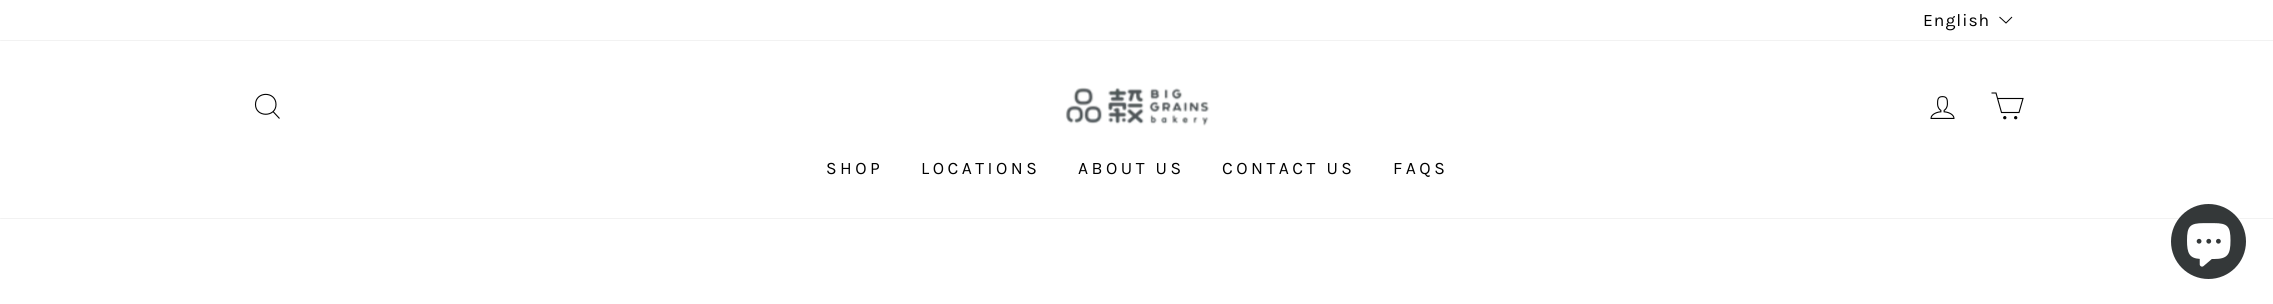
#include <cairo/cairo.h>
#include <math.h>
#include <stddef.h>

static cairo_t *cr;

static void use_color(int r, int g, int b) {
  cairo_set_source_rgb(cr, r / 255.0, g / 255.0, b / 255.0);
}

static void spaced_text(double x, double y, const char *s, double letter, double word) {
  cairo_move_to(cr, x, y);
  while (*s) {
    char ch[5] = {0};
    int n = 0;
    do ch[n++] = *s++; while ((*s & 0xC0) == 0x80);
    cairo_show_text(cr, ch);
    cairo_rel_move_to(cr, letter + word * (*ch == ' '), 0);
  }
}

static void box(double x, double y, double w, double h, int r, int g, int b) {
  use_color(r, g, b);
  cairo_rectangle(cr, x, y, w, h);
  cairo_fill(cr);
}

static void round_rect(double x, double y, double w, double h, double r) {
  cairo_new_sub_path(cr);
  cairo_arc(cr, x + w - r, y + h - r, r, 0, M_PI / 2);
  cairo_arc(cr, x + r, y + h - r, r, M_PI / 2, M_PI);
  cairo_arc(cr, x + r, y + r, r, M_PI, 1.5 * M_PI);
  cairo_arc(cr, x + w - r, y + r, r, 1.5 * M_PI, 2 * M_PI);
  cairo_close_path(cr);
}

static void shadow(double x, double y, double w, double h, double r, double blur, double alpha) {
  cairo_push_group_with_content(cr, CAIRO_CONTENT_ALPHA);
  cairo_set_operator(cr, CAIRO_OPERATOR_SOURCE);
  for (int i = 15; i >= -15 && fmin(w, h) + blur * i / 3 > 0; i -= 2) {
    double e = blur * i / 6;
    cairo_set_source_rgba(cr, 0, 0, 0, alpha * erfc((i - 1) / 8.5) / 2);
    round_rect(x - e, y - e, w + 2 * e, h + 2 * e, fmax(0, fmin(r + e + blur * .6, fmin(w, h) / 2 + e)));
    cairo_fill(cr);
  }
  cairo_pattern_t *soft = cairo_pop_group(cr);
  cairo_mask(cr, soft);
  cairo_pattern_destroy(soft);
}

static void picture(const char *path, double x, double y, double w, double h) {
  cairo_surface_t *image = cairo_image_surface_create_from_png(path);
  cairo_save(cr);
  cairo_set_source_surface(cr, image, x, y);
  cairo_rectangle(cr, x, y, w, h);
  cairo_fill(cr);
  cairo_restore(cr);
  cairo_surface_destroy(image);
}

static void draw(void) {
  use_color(255, 255, 255);
  cairo_paint(cr);
  cairo_new_path(cr);
  cairo_move_to(cr, 1999.5, 17);
  cairo_line_to(cr, 2006, 23);
  cairo_line_to(cr, 2012, 17);
  use_color(0, 0, 0);
  cairo_set_line_width(cr, 1);
  cairo_stroke(cr);
  use_color(0, 0, 0);
  shadow(0, 41, 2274, 177, 0, 0.5, 0.2);
  box(0, 41, 2273, 177, 255, 255, 255);
  cairo_new_path(cr);
  cairo_move_to(cr, 276, 104.5);
  cairo_curve_to(cr, 276, 117.5, 255.5, 117.5, 255.5, 104.5);
  cairo_curve_to(cr, 255.5, 91, 276, 91, 276, 104.5);
  cairo_close_path(cr);
  cairo_move_to(cr, 279.5, 118.5);
  cairo_line_to(cr, 273, 111.5);
  use_color(0, 0, 0);
  cairo_set_line_width(cr, 1.1);
  cairo_stroke(cr);
  picture("img_01.png", 1065, 87, 145, 39);
  picture("img_02.png", 1930, 96, 25, 23);
  cairo_new_path(cr);
  cairo_move_to(cr, 1997.5, 98.5);
  cairo_line_to(cr, 2023, 98.5);
  cairo_line_to(cr, 2019, 112.5);
  cairo_line_to(cr, 2001.5, 112.5);
  cairo_line_to(cr, 1996, 93);
  cairo_line_to(cr, 1991.5, 93);
  cairo_stroke(cr);
  cairo_arc(cr, 2004.8, 117.7, 1.1, 0, 2 * M_PI);
  cairo_fill_preserve(cr);
  cairo_stroke(cr);
  cairo_arc(cr, 2015.7, 117.7, 1.1, 0, 2 * M_PI);
  cairo_fill_preserve(cr);
  cairo_stroke(cr);
  use_color(52, 56, 57);
  cairo_arc(cr, 2208.5, 241.5, 37.5, 0, 2 * M_PI);
  cairo_fill(cr);
  picture("img_03.png", 2187, 223, 44, 44);
  cairo_select_font_face(cr, "Karla", CAIRO_FONT_SLANT_NORMAL, CAIRO_FONT_WEIGHT_NORMAL);
  cairo_set_font_size(cr, 17.5);
  use_color(0, 0, 0);
  spaced_text(1923, 26, "English", 1, 0);
  spaced_text(826, 174, "SHOP", 3.5, 0);
  spaced_text(921, 174, "LOCATIONS", 3.5, 0);
  spaced_text(1078, 174, "ABOUT US", 3.5, 0);
  spaced_text(1222, 174, "CONTACT US", 3.5, 0);
  spaced_text(1393, 174, "FAQS", 3.5, 0);
}

int main(void) {
  cairo_surface_t *surface = cairo_image_surface_create(CAIRO_FORMAT_RGB24, 2273, 304);
  cr = cairo_create(surface);
  cairo_font_options_t *options = cairo_font_options_create();
  cairo_font_options_set_hint_metrics(options, CAIRO_HINT_METRICS_OFF);
  cairo_font_options_set_hint_style(options, CAIRO_HINT_STYLE_NONE);
  cairo_set_font_options(cr, options);
  cairo_set_miter_limit(cr, 4);
  draw();
  cairo_surface_write_to_png(surface, "out.png");
  cairo_font_options_destroy(options);
  cairo_destroy(cr);
  cairo_surface_destroy(surface);
  return 0;
}
